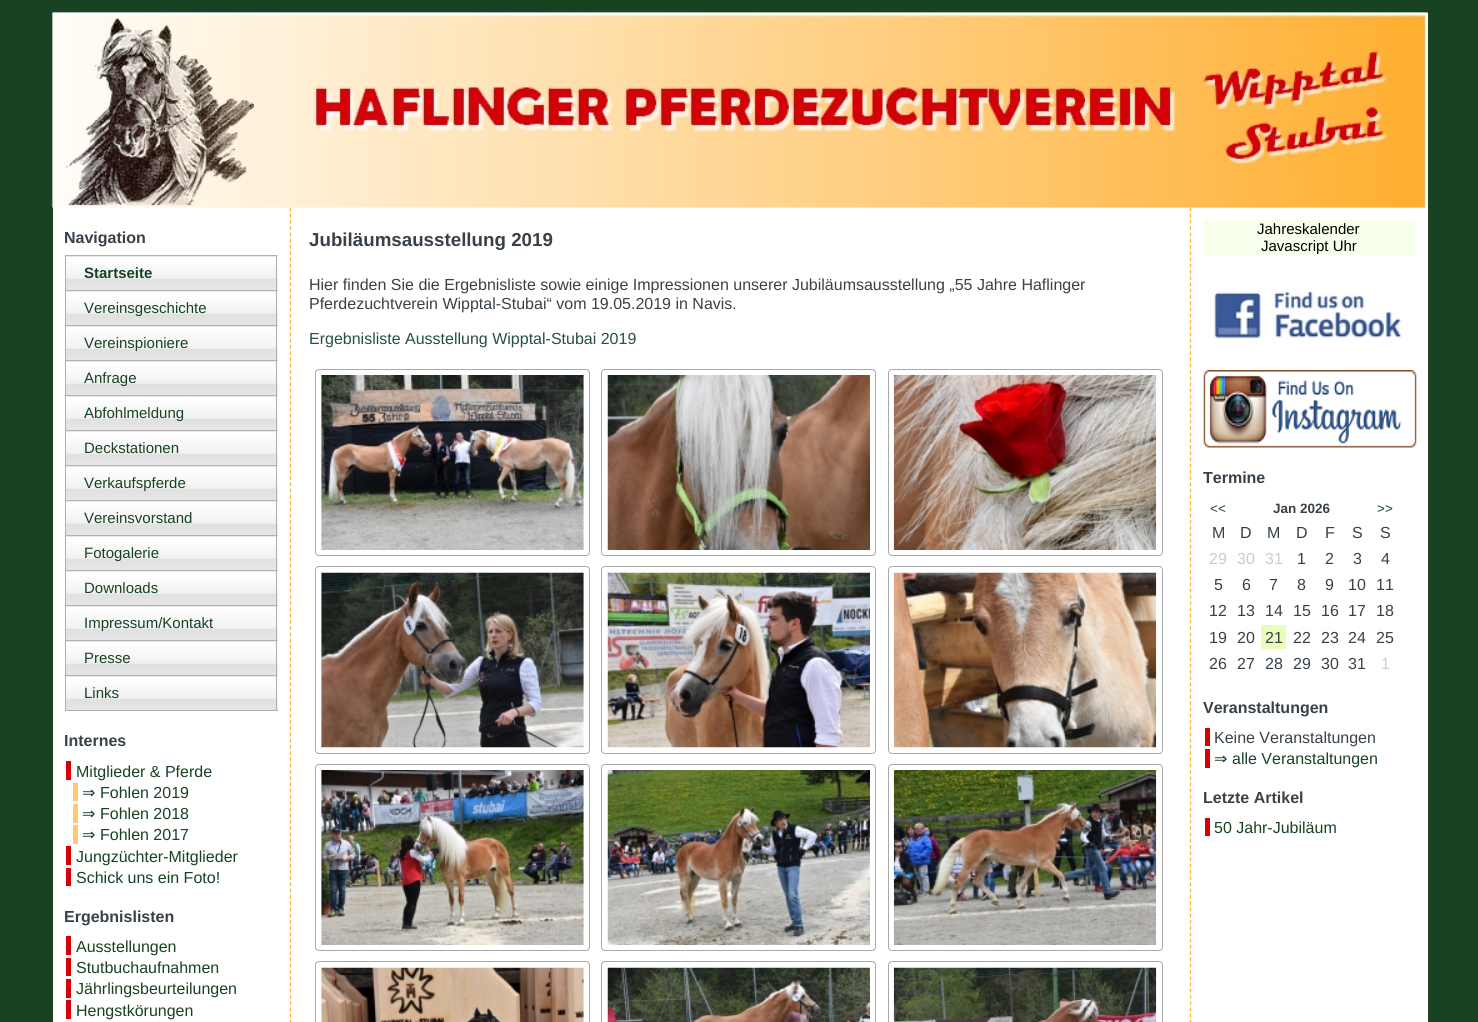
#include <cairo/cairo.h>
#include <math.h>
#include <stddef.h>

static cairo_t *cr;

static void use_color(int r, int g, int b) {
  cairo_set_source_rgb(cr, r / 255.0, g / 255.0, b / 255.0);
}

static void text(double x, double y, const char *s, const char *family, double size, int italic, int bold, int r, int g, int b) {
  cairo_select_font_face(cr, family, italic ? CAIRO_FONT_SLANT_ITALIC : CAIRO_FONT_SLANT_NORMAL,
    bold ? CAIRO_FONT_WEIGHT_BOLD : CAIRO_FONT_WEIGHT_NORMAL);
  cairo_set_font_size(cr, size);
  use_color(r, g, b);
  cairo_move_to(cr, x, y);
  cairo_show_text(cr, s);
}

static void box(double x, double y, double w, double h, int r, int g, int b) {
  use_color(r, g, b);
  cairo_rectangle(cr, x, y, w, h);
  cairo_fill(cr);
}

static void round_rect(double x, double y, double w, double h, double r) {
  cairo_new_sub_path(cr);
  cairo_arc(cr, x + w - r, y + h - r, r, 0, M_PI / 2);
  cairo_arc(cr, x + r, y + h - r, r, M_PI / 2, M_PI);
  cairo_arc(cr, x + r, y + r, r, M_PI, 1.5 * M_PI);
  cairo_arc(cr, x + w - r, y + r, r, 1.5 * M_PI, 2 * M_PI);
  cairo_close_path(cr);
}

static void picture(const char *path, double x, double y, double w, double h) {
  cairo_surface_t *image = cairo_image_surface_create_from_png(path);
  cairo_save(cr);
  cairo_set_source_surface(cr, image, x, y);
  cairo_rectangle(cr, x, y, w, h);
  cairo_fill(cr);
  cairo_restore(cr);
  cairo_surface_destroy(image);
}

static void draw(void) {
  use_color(23, 67, 34);
  cairo_paint(cr);
  box(53, 13, 1375, 1009, 255, 255, 255);
  cairo_new_path(cr);
  cairo_move_to(cr, 290.5, 207.5);
  cairo_line_to(cr, 290.5, 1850);
  use_color(255, 177, 53);
  cairo_set_line_width(cr, 1.2);
  cairo_set_dash(cr, (double[]){3.75, 2.5}, 2, 0);
  cairo_stroke(cr);
  cairo_new_path(cr);
  cairo_move_to(cr, 1190.5, 207.5);
  cairo_line_to(cr, 1190.5, 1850);
  cairo_stroke(cr);
  picture("img_01.png", 52, 12, 1376, 196);
  picture("img_02.png", 52, 12, 1376, 196);
  box(65, 710, 213, 1, 175, 175, 175);
  picture("img_03.png", 66, 255, 212, 35);
  box(276, 255, 1, 35, 175, 175, 175);
  box(65, 255, 1, 455, 175, 175, 175);
  picture("img_03.png", 66, 290, 212, 35);
  box(276, 290, 1, 35, 175, 175, 175);
  picture("img_03.png", 66, 325, 212, 35);
  box(276, 325, 1, 35, 175, 175, 175);
  picture("img_03.png", 66, 360, 212, 35);
  box(276, 360, 1, 35, 175, 175, 175);
  picture("img_03.png", 66, 395, 212, 35);
  box(276, 395, 1, 35, 175, 175, 175);
  picture("img_04.png", 66, 430, 212, 35);
  box(276, 430, 1, 35, 175, 175, 175);
  picture("img_05.png", 66, 465, 212, 35);
  box(276, 465, 1, 35, 175, 175, 175);
  picture("img_03.png", 66, 500, 212, 35);
  box(276, 500, 1, 35, 175, 175, 175);
  picture("img_03.png", 66, 535, 212, 35);
  box(276, 535, 1, 35, 175, 175, 175);
  picture("img_03.png", 66, 570, 212, 35);
  box(276, 570, 1, 35, 175, 175, 175);
  picture("img_04.png", 66, 605, 212, 35);
  box(276, 605, 1, 35, 175, 175, 175);
  picture("img_03.png", 66, 640, 212, 35);
  box(276, 640, 1, 35, 175, 175, 175);
  picture("img_06.png", 66, 675, 212, 35);
  box(276, 675, 1, 35, 175, 175, 175);
  box(66, 761, 5, 19, 212, 1, 7);
  box(73, 783, 5, 18, 255, 200, 117);
  box(73, 804, 5, 19, 255, 200, 117);
  box(73, 825, 5, 19, 255, 200, 117);
  box(66, 846, 5, 19, 212, 1, 7);
  box(66, 868, 5, 18, 212, 1, 7);
  box(66, 936, 5, 19, 212, 1, 7);
  box(66, 958, 5, 18, 212, 1, 7);
  box(66, 979, 5, 19, 212, 1, 7);
  box(66, 1000, 5, 19, 212, 1, 7);
  round_rect(315.5, 369.5, 274, 186, 3.5);
  use_color(169, 169, 169);
  cairo_set_line_width(cr, 1);
  cairo_set_dash(cr, NULL, 0, 0);
  cairo_stroke(cr);
  picture("img_07.png", 321, 375, 263, 175);
  round_rect(601.5, 369.5, 274, 186, 3.5);
  cairo_stroke(cr);
  picture("img_08.png", 607, 375, 263, 175);
  round_rect(888.5, 369.5, 274, 186, 3.5);
  cairo_stroke(cr);
  picture("img_09.png", 893, 375, 264, 175);
  round_rect(315.5, 566.5, 274, 187, 3.5);
  cairo_stroke(cr);
  picture("img_10.png", 321, 572, 263, 176);
  round_rect(601.5, 566.5, 274, 187, 3.5);
  cairo_stroke(cr);
  picture("img_11.png", 607, 572, 263, 176);
  round_rect(888.5, 566.5, 274, 187, 3.5);
  cairo_stroke(cr);
  picture("img_12.png", 893, 572, 264, 176);
  round_rect(315.5, 764.5, 274, 186, 3.5);
  cairo_stroke(cr);
  picture("img_13.png", 321, 770, 263, 175);
  round_rect(601.5, 764.5, 274, 186, 3.5);
  cairo_stroke(cr);
  picture("img_14.png", 607, 770, 263, 175);
  round_rect(888.5, 764.5, 274, 186, 3.5);
  cairo_stroke(cr);
  picture("img_15.png", 893, 770, 264, 175);
  round_rect(315.5, 961.5, 274, 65, 3.5);
  cairo_stroke(cr);
  picture("img_16.png", 321, 967, 263, 55);
  round_rect(601.5, 961.5, 274, 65, 3.5);
  cairo_stroke(cr);
  picture("img_17.png", 607, 967, 263, 55);
  round_rect(888.5, 961.5, 274, 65, 3.5);
  cairo_stroke(cr);
  picture("img_18.png", 893, 967, 264, 55);
  box(1204, 220, 211, 35, 247, 255, 237);
  picture("img_19.png", 1213, 291, 189, 48);
  picture("img_20.png", 1203, 370, 214, 78);
  box(1261, 625, 25, 24, 232, 254, 186);
  box(1205, 728, 5, 18, 212, 1, 7);
  box(1205, 749, 5, 19, 212, 1, 7);
  box(1205, 818, 5, 18, 212, 1, 7);
  text(64, 243, "Navigation", "Liberation Sans", 16, 0, 1, 56, 65, 73);
  text(84, 278, "Startseite", "Liberation Sans", 15, 0, 1, 23, 67, 34);
  text(84, 313, "Vereinsgeschichte", "Liberation Sans", 15, 0, 0, 23, 67, 34);
  text(84, 348, "Vereinspioniere", "Liberation Sans", 15, 0, 0, 23, 67, 34);
  text(84, 383, "Anfrage", "Liberation Sans", 15, 0, 0, 23, 67, 34);
  text(84, 418, "Abfohlmeldung", "Liberation Sans", 15, 0, 0, 23, 67, 34);
  text(84, 453, "Deckstationen", "Liberation Sans", 15, 0, 0, 23, 67, 34);
  text(84, 488, "Verkaufspferde", "Liberation Sans", 15, 0, 0, 23, 67, 34);
  text(84, 523, "Vereinsvorstand", "Liberation Sans", 15, 0, 0, 23, 67, 34);
  text(84, 558, "Fotogalerie", "Liberation Sans", 15, 0, 0, 23, 67, 34);
  text(84, 593, "Downloads", "Liberation Sans", 15, 0, 0, 23, 67, 34);
  text(84, 628, "Impressum/Kontakt", "Liberation Sans", 15, 0, 0, 23, 67, 34);
  text(84, 663, "Presse", "Liberation Sans", 15, 0, 0, 23, 67, 34);
  text(84, 698, "Links", "Liberation Sans", 15, 0, 0, 23, 67, 34);
  text(64, 746, "Internes", "Liberation Sans", 16, 0, 1, 56, 65, 73);
  text(76, 777, "Mitglieder & Pferde", "Liberation Sans", 16, 0, 0, 23, 67, 34);
  text(82, 798, "⇒", "DejaVu Sans", 16, 0, 0, 23, 67, 34);
  text(100, 798, "Fohlen 2019", "Liberation Sans", 16, 0, 0, 23, 67, 34);
  text(82, 819, "⇒", "DejaVu Sans", 16, 0, 0, 23, 67, 34);
  text(100, 819, "Fohlen 2018", "Liberation Sans", 16, 0, 0, 23, 67, 34);
  text(82, 840, "⇒", "DejaVu Sans", 16, 0, 0, 23, 67, 34);
  text(100, 840, "Fohlen 2017", "Liberation Sans", 16, 0, 0, 23, 67, 34);
  text(76, 862, "Jungzüchter-Mitglieder", "Liberation Sans", 16, 0, 0, 23, 67, 34);
  text(76, 883, "Schick uns ein Foto!", "Liberation Sans", 16, 0, 0, 23, 67, 34);
  text(64, 922, "Ergebnislisten", "Liberation Sans", 16, 0, 1, 56, 65, 73);
  text(76, 952, "Ausstellungen", "Liberation Sans", 16, 0, 0, 23, 67, 34);
  text(76, 973, "Stutbuchaufnahmen", "Liberation Sans", 16, 0, 0, 23, 67, 34);
  text(76, 994, "Jährlingsbeurteilungen", "Liberation Sans", 16, 0, 0, 23, 67, 34);
  text(76, 1016, "Hengstkörungen", "Liberation Sans", 16, 0, 0, 23, 67, 34);
  text(309, 246, "Jubiläumsausstellung 2019", "Liberation Sans", 18.75, 0, 1, 56, 65, 73);
  text(309, 290, "Hier finden Sie die Ergebnisliste sowie einige Impressionen unserer Jubiläumsausstellung „55 Jahre Haflinger", "Liberation Sans", 16, 0, 0, 56, 65, 73);
  text(309, 309, "Pferdezuchtverein Wipptal-Stubai“ vom 19.05.2019 in Navis.", "Liberation Sans", 16, 0, 0, 56, 65, 73);
  text(309, 344, "Ergebnisliste Ausstellung Wipptal-Stubai 2019", "Liberation Sans", 16, 0, 0, 34, 82, 62);
  text(1257, 234, "Jahreskalender", "Liberation Sans", 15, 0, 0, 0, 0, 0);
  text(1261, 251, "Javascript Uhr", "Liberation Sans", 15, 0, 0, 0, 0, 0);
  text(1203, 483, "Termine", "Liberation Sans", 16, 0, 1, 56, 65, 73);
  text(1210, 513, "<<", "Liberation Sans", 13.5, 0, 0, 23, 67, 34);
  text(1273, 513, "Jan 2026", "Liberation Sans", 13.5, 0, 1, 56, 65, 73);
  text(1377, 513, ">>", "Liberation Sans", 13.5, 0, 0, 23, 67, 34);
  text(1212, 538, "M", "Liberation Sans", 16, 0, 0, 56, 65, 73);
  text(1240, 538, "D", "Liberation Sans", 16, 0, 0, 56, 65, 73);
  text(1267, 538, "M", "Liberation Sans", 16, 0, 0, 56, 65, 73);
  text(1296, 538, "D", "Liberation Sans", 16, 0, 0, 56, 65, 73);
  text(1325, 538, "F", "Liberation Sans", 16, 0, 0, 56, 65, 73);
  text(1352, 538, "S", "Liberation Sans", 16, 0, 0, 56, 65, 73);
  text(1380, 538, "S", "Liberation Sans", 16, 0, 0, 56, 65, 73);
  text(1209, 564, "29", "Liberation Sans", 16, 0, 0, 204, 204, 204);
  text(1237, 564, "30", "Liberation Sans", 16, 0, 0, 204, 204, 204);
  text(1265, 564, "31", "Liberation Sans", 16, 0, 0, 204, 204, 204);
  text(1297, 564, "1", "Liberation Sans", 16, 0, 0, 56, 65, 73);
  text(1325, 564, "2", "Liberation Sans", 16, 0, 0, 56, 65, 73);
  text(1353, 564, "3", "Liberation Sans", 16, 0, 0, 56, 65, 73);
  text(1381, 564, "4", "Liberation Sans", 16, 0, 0, 56, 65, 73);
  text(1214, 590, "5", "Liberation Sans", 16, 0, 0, 56, 65, 73);
  text(1242, 590, "6", "Liberation Sans", 16, 0, 0, 56, 65, 73);
  text(1269, 590, "7", "Liberation Sans", 16, 0, 0, 56, 65, 73);
  text(1297, 590, "8", "Liberation Sans", 16, 0, 0, 56, 65, 73);
  text(1325, 590, "9", "Liberation Sans", 16, 0, 0, 56, 65, 73);
  text(1348, 590, "10", "Liberation Sans", 16, 0, 0, 56, 65, 73);
  text(1376, 590, "11", "Liberation Sans", 16, 0, 0, 56, 65, 73);
  text(1209, 616, "12", "Liberation Sans", 16, 0, 0, 56, 65, 73);
  text(1237, 616, "13", "Liberation Sans", 16, 0, 0, 56, 65, 73);
  text(1265, 616, "14", "Liberation Sans", 16, 0, 0, 56, 65, 73);
  text(1293, 616, "15", "Liberation Sans", 16, 0, 0, 56, 65, 73);
  text(1321, 616, "16", "Liberation Sans", 16, 0, 0, 56, 65, 73);
  text(1348, 616, "17", "Liberation Sans", 16, 0, 0, 56, 65, 73);
  text(1376, 616, "18", "Liberation Sans", 16, 0, 0, 56, 65, 73);
  text(1209, 643, "19", "Liberation Sans", 16, 0, 0, 56, 65, 73);
  text(1237, 643, "20", "Liberation Sans", 16, 0, 0, 56, 65, 73);
  text(1265, 643, "21", "Liberation Sans", 16, 0, 0, 56, 65, 73);
  text(1293, 643, "22", "Liberation Sans", 16, 0, 0, 56, 65, 73);
  text(1321, 643, "23", "Liberation Sans", 16, 0, 0, 56, 65, 73);
  text(1348, 643, "24", "Liberation Sans", 16, 0, 0, 56, 65, 73);
  text(1376, 643, "25", "Liberation Sans", 16, 0, 0, 56, 65, 73);
  text(1209, 669, "26", "Liberation Sans", 16, 0, 0, 56, 65, 73);
  text(1237, 669, "27", "Liberation Sans", 16, 0, 0, 56, 65, 73);
  text(1265, 669, "28", "Liberation Sans", 16, 0, 0, 56, 65, 73);
  text(1293, 669, "29", "Liberation Sans", 16, 0, 0, 56, 65, 73);
  text(1321, 669, "30", "Liberation Sans", 16, 0, 0, 56, 65, 73);
  text(1348, 669, "31", "Liberation Sans", 16, 0, 0, 56, 65, 73);
  text(1381, 669, "1", "Liberation Sans", 16, 0, 0, 204, 204, 204);
  text(1203, 713, "Veranstaltungen", "Liberation Sans", 16, 0, 1, 56, 65, 73);
  text(1214, 743, "Keine Veranstaltungen", "Liberation Sans", 16, 0, 0, 56, 65, 73);
  text(1214, 764, "⇒", "DejaVu Sans", 16, 0, 0, 23, 67, 34);
  text(1232, 764, "alle Veranstaltungen", "Liberation Sans", 16, 0, 0, 23, 67, 34);
  text(1203, 803, "Letzte Artikel", "Liberation Sans", 16, 0, 1, 56, 65, 73);
  text(1214, 833, "50 Jahr-Jubiläum", "Liberation Sans", 16, 0, 0, 23, 67, 34);
}

int main(void) {
  cairo_surface_t *surface = cairo_image_surface_create(CAIRO_FORMAT_RGB24, 1478, 1022);
  cr = cairo_create(surface);
  cairo_font_options_t *options = cairo_font_options_create();
  cairo_font_options_set_hint_metrics(options, CAIRO_HINT_METRICS_OFF);
  cairo_font_options_set_hint_style(options, CAIRO_HINT_STYLE_NONE);
  cairo_set_font_options(cr, options);
  cairo_set_miter_limit(cr, 4);
  draw();
  cairo_surface_write_to_png(surface, "out.png");
  cairo_font_options_destroy(options);
  cairo_destroy(cr);
  cairo_surface_destroy(surface);
  return 0;
}
